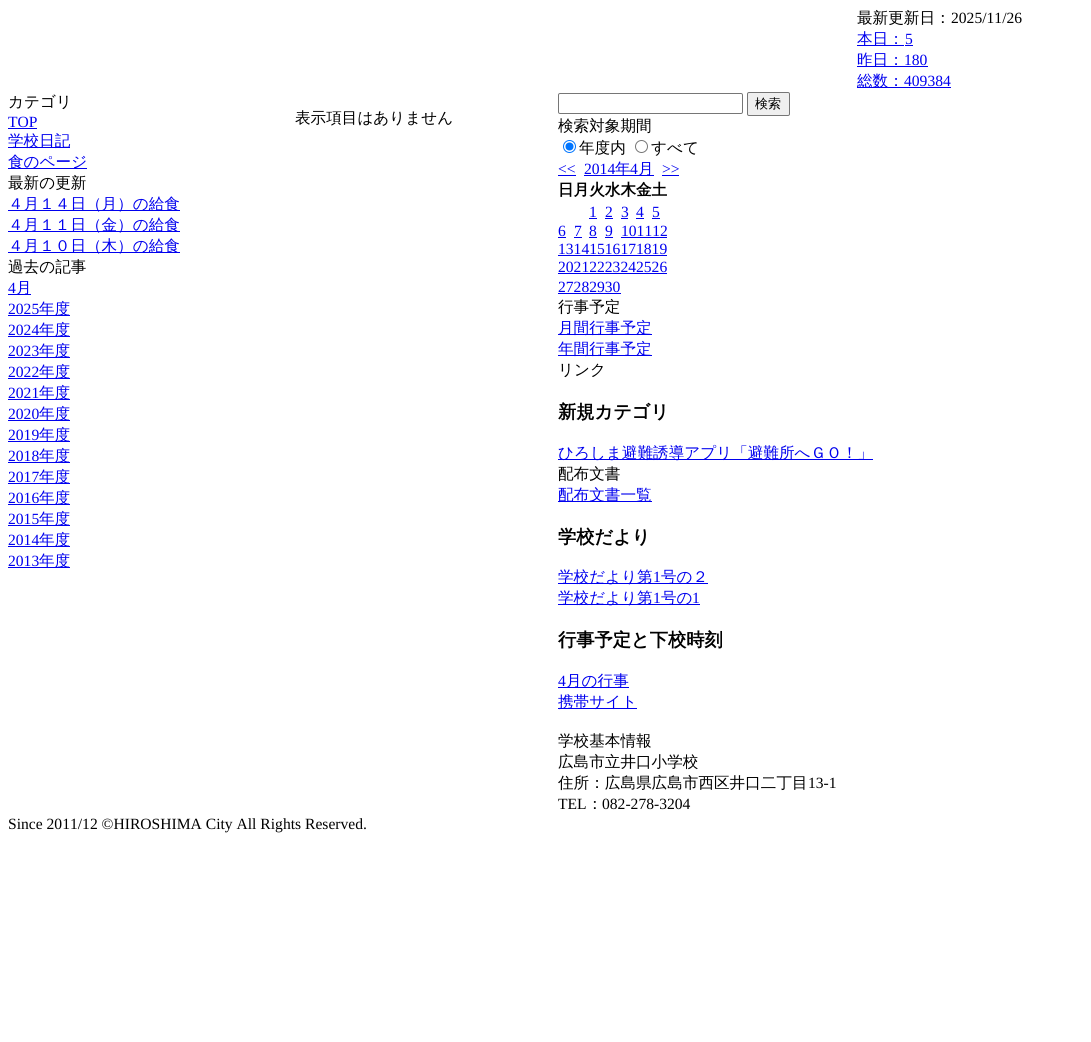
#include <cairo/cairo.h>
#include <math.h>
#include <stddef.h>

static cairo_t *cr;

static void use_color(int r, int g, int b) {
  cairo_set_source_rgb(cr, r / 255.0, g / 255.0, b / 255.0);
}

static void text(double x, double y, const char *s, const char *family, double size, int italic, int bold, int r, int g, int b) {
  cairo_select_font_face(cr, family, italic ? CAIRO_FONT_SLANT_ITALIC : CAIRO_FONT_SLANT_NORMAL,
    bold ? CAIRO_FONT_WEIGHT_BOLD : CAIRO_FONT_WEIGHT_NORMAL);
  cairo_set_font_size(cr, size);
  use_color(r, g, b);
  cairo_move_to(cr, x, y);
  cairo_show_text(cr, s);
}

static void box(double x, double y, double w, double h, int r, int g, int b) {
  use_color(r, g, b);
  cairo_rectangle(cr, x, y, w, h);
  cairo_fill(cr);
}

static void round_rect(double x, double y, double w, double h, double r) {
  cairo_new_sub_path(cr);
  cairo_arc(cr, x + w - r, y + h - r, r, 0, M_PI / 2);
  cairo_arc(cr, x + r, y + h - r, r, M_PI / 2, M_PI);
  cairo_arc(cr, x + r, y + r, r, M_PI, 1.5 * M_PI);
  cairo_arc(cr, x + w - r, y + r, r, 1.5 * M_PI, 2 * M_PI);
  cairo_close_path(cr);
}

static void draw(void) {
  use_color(255, 255, 255);
  cairo_paint(cr);
  box(857, 45, 47, 1, 0, 0, 238);
  box(905, 45, 8, 1, 0, 0, 238);
  box(857, 66, 71, 1, 0, 0, 238);
  box(857, 87, 94, 1, 0, 0, 238);
  box(8, 128, 29, 1, 0, 0, 238);
  box(8, 147, 62, 1, 0, 0, 238);
  box(8, 168, 79, 1, 0, 0, 238);
  box(8, 210, 172, 1, 0, 0, 238);
  box(8, 231, 172, 1, 0, 0, 238);
  box(8, 252, 172, 1, 0, 0, 238);
  box(8, 294, 23, 1, 0, 0, 238);
  box(8, 315, 62, 1, 0, 0, 238);
  box(8, 336, 62, 1, 0, 0, 238);
  box(8, 357, 62, 1, 0, 0, 238);
  box(8, 378, 62, 1, 0, 0, 238);
  box(8, 399, 62, 1, 0, 0, 238);
  box(8, 420, 62, 1, 0, 0, 238);
  box(8, 441, 62, 1, 0, 0, 238);
  box(8, 462, 62, 1, 0, 0, 238);
  box(8, 483, 62, 1, 0, 0, 238);
  box(8, 504, 62, 1, 0, 0, 238);
  box(8, 525, 62, 1, 0, 0, 238);
  box(8, 546, 62, 1, 0, 0, 238);
  box(8, 567, 62, 1, 0, 0, 238);
  round_rect(558.5, 93.5, 184, 20, 1.5);
  use_color(118, 118, 118);
  cairo_set_line_width(cr, 1);
  cairo_stroke(cr);
  use_color(239, 239, 239);
  round_rect(747.5, 92.5, 42, 23, 1.5);
  cairo_fill_preserve(cr);
  use_color(118, 118, 118);
  cairo_stroke(cr);
  cairo_arc(cr, 569.5, 146.5, 6, 0, 2 * M_PI);
  use_color(0, 117, 255);
  cairo_stroke(cr);
  cairo_arc(cr, 569.5, 146.5, 4, 0, 2 * M_PI);
  cairo_fill(cr);
  cairo_arc(cr, 641.5, 146.5, 6, 0, 2 * M_PI);
  use_color(118, 118, 118);
  cairo_stroke(cr);
  box(558, 175, 18, 1, 0, 0, 238);
  box(584, 175, 70, 1, 0, 0, 238);
  box(662, 175, 17, 1, 0, 0, 238);
  box(589, 218, 8, 1, 0, 0, 238);
  box(605, 218, 8, 1, 0, 0, 238);
  box(621, 218, 7, 1, 0, 0, 238);
  box(636, 218, 8, 1, 0, 0, 238);
  box(652, 218, 8, 1, 0, 0, 238);
  box(558, 237, 8, 1, 0, 0, 238);
  box(574, 237, 8, 1, 0, 0, 238);
  box(589, 237, 8, 1, 0, 0, 238);
  box(605, 237, 8, 1, 0, 0, 238);
  box(621, 237, 46, 1, 0, 0, 238);
  box(558, 255, 109, 1, 0, 0, 238);
  box(558, 273, 109, 1, 0, 0, 238);
  box(558, 293, 63, 1, 0, 0, 238);
  box(558, 334, 94, 1, 0, 0, 238);
  box(558, 355, 94, 1, 0, 0, 238);
  box(558, 459, 315, 1, 0, 0, 238);
  box(558, 501, 94, 1, 0, 0, 238);
  box(558, 583, 150, 1, 0, 0, 238);
  box(558, 604, 142, 1, 0, 0, 238);
  box(558, 687, 71, 1, 0, 0, 238);
  box(558, 708, 79, 1, 0, 0, 238);
  text(857, 23, "最新更新日：", "WenQuanYi Zen Hei Medium", 15.6, 0, 0, 0, 0, 0);
  text(951, 23, "2025/11/26", "Liberation Serif", 15.6, 0, 0, 0, 0, 0);
  text(857, 44, "本日：", "WenQuanYi Zen Hei Medium", 15.6, 0, 0, 0, 0, 238);
  text(905, 44, "5", "Liberation Serif", 15.6, 0, 0, 0, 0, 238);
  text(857, 65, "昨日：", "WenQuanYi Zen Hei Medium", 15.6, 0, 0, 0, 0, 238);
  text(904, 65, "180", "Liberation Serif", 15.6, 0, 0, 0, 0, 238);
  text(857, 86, "総数：", "WenQuanYi Zen Hei Medium", 15.6, 0, 0, 0, 0, 238);
  text(904, 86, "409384", "Liberation Serif", 15.6, 0, 0, 0, 0, 238);
  text(8, 107, "カテゴリ", "WenQuanYi Zen Hei Medium", 15.6, 0, 0, 0, 0, 0);
  text(8, 127, "TOP", "Liberation Serif", 15.6, 0, 0, 0, 0, 238);
  text(8, 146, "学校日記", "WenQuanYi Zen Hei Medium", 15.6, 0, 0, 0, 0, 238);
  text(8, 167, "食のページ", "WenQuanYi Zen Hei Medium", 15.6, 0, 0, 0, 0, 238);
  text(8, 188, "最新の更新", "WenQuanYi Zen Hei Medium", 15.6, 0, 0, 0, 0, 0);
  text(8, 209, "４月１４日（月）の給食", "WenQuanYi Zen Hei Medium", 15.6, 0, 0, 0, 0, 238);
  text(8, 230, "４月１１日（金）の給食", "WenQuanYi Zen Hei Medium", 15.6, 0, 0, 0, 0, 238);
  text(8, 251, "４月１０日（木）の給食", "WenQuanYi Zen Hei Medium", 15.6, 0, 0, 0, 0, 238);
  text(8, 272, "過去の記事", "WenQuanYi Zen Hei Medium", 15.6, 0, 0, 0, 0, 0);
  text(8, 293, "4", "Liberation Serif", 15.6, 0, 0, 0, 0, 238);
  text(16, 293, "月", "WenQuanYi Zen Hei Medium", 15.6, 0, 0, 0, 0, 238);
  text(8, 314, "2025", "Liberation Serif", 15.6, 0, 0, 0, 0, 238);
  text(39, 314, "年度", "WenQuanYi Zen Hei Medium", 15.6, 0, 0, 0, 0, 238);
  text(8, 335, "2024", "Liberation Serif", 15.6, 0, 0, 0, 0, 238);
  text(39, 335, "年度", "WenQuanYi Zen Hei Medium", 15.6, 0, 0, 0, 0, 238);
  text(8, 356, "2023", "Liberation Serif", 15.6, 0, 0, 0, 0, 238);
  text(39, 356, "年度", "WenQuanYi Zen Hei Medium", 15.6, 0, 0, 0, 0, 238);
  text(8, 377, "2022", "Liberation Serif", 15.6, 0, 0, 0, 0, 238);
  text(39, 377, "年度", "WenQuanYi Zen Hei Medium", 15.6, 0, 0, 0, 0, 238);
  text(8, 398, "2021", "Liberation Serif", 15.6, 0, 0, 0, 0, 238);
  text(39, 398, "年度", "WenQuanYi Zen Hei Medium", 15.6, 0, 0, 0, 0, 238);
  text(8, 419, "2020", "Liberation Serif", 15.6, 0, 0, 0, 0, 238);
  text(39, 419, "年度", "WenQuanYi Zen Hei Medium", 15.6, 0, 0, 0, 0, 238);
  text(8, 440, "2019", "Liberation Serif", 15.6, 0, 0, 0, 0, 238);
  text(39, 440, "年度", "WenQuanYi Zen Hei Medium", 15.6, 0, 0, 0, 0, 238);
  text(8, 461, "2018", "Liberation Serif", 15.6, 0, 0, 0, 0, 238);
  text(39, 461, "年度", "WenQuanYi Zen Hei Medium", 15.6, 0, 0, 0, 0, 238);
  text(8, 482, "2017", "Liberation Serif", 15.6, 0, 0, 0, 0, 238);
  text(39, 482, "年度", "WenQuanYi Zen Hei Medium", 15.6, 0, 0, 0, 0, 238);
  text(8, 503, "2016", "Liberation Serif", 15.6, 0, 0, 0, 0, 238);
  text(39, 503, "年度", "WenQuanYi Zen Hei Medium", 15.6, 0, 0, 0, 0, 238);
  text(8, 524, "2015", "Liberation Serif", 15.6, 0, 0, 0, 0, 238);
  text(39, 524, "年度", "WenQuanYi Zen Hei Medium", 15.6, 0, 0, 0, 0, 238);
  text(8, 545, "2014", "Liberation Serif", 15.6, 0, 0, 0, 0, 238);
  text(39, 545, "年度", "WenQuanYi Zen Hei Medium", 15.6, 0, 0, 0, 0, 238);
  text(8, 566, "2013", "Liberation Serif", 15.6, 0, 0, 0, 0, 238);
  text(39, 566, "年度", "WenQuanYi Zen Hei Medium", 15.6, 0, 0, 0, 0, 238);
  text(295, 123, "表示項目はありません", "WenQuanYi Zen Hei Medium", 15.6, 0, 0, 0, 0, 0);
  text(755, 108, "検索", "WenQuanYi Zen Hei Medium", 13, 0, 0, 0, 0, 0);
  text(558, 131, "検索対象期間", "WenQuanYi Zen Hei Medium", 15.6, 0, 0, 0, 0, 0);
  text(579, 153, "年度内", "WenQuanYi Zen Hei Medium", 15.6, 0, 0, 0, 0, 0);
  text(651, 153, "すべて", "WenQuanYi Zen Hei Medium", 15.6, 0, 0, 0, 0, 0);
  text(558, 174, "<<", "Liberation Serif", 15.6, 0, 0, 0, 0, 238);
  text(584, 174, "2014", "Liberation Serif", 15.6, 0, 0, 0, 0, 238);
  text(615, 174, "年", "WenQuanYi Zen Hei Medium", 15.6, 0, 0, 0, 0, 238);
  text(630, 174, "4", "Liberation Serif", 15.6, 0, 0, 0, 0, 238);
  text(638, 174, "月", "WenQuanYi Zen Hei Medium", 15.6, 0, 0, 0, 0, 238);
  text(662, 174, ">>", "Liberation Serif", 15.6, 0, 0, 0, 0, 238);
  text(558, 195, "日月火水木金土", "WenQuanYi Zen Hei", 15.6, 0, 1, 0, 0, 0);
  text(589, 217, "1", "Liberation Serif", 15.6, 0, 0, 0, 0, 238);
  text(605, 217, "2", "Liberation Serif", 15.6, 0, 0, 0, 0, 238);
  text(621, 217, "3", "Liberation Serif", 15.6, 0, 0, 0, 0, 238);
  text(636, 217, "4", "Liberation Serif", 15.6, 0, 0, 0, 0, 238);
  text(652, 217, "5", "Liberation Serif", 15.6, 0, 0, 0, 0, 238);
  text(558, 236, "6", "Liberation Serif", 15.6, 0, 0, 0, 0, 238);
  text(574, 236, "7", "Liberation Serif", 15.6, 0, 0, 0, 0, 238);
  text(589, 236, "8", "Liberation Serif", 15.6, 0, 0, 0, 0, 238);
  text(605, 236, "9", "Liberation Serif", 15.6, 0, 0, 0, 0, 238);
  text(621, 236, "101112", "Liberation Serif", 15.6, 0, 0, 0, 0, 238);
  text(558, 254, "13141516171819", "Liberation Serif", 15.6, 0, 0, 0, 0, 238);
  text(558, 272, "20212223242526", "Liberation Serif", 15.6, 0, 0, 0, 0, 238);
  text(558, 292, "27282930", "Liberation Serif", 15.6, 0, 0, 0, 0, 238);
  text(558, 312, "行事予定", "WenQuanYi Zen Hei Medium", 15.6, 0, 0, 0, 0, 0);
  text(558, 333, "月間行事予定", "WenQuanYi Zen Hei Medium", 15.6, 0, 0, 0, 0, 238);
  text(558, 354, "年間行事予定", "WenQuanYi Zen Hei Medium", 15.6, 0, 0, 0, 0, 238);
  text(558, 375, "リンク", "WenQuanYi Zen Hei Medium", 15.6, 0, 0, 0, 0, 0);
  text(558, 418, "新規カテゴリ", "WenQuanYi Zen Hei", 18.25, 0, 1, 0, 0, 0);
  text(558, 458, "ひろしま避難誘導アプリ「避難所へＧＯ！」", "WenQuanYi Zen Hei Medium", 15.6, 0, 0, 0, 0, 238);
  text(558, 479, "配布文書", "WenQuanYi Zen Hei Medium", 15.6, 0, 0, 0, 0, 0);
  text(558, 500, "配布文書一覧", "WenQuanYi Zen Hei Medium", 15.6, 0, 0, 0, 0, 238);
  text(558, 543, "学校だより", "WenQuanYi Zen Hei", 18.25, 0, 1, 0, 0, 0);
  text(558, 582, "学校だより第", "WenQuanYi Zen Hei Medium", 15.6, 0, 0, 0, 0, 238);
  text(653, 582, "1", "Liberation Serif", 15.6, 0, 0, 0, 0, 238);
  text(661, 582, "号の２", "WenQuanYi Zen Hei Medium", 15.6, 0, 0, 0, 0, 238);
  text(558, 603, "学校だより第", "WenQuanYi Zen Hei Medium", 15.6, 0, 0, 0, 0, 238);
  text(653, 603, "1", "Liberation Serif", 15.6, 0, 0, 0, 0, 238);
  text(661, 603, "号の", "WenQuanYi Zen Hei Medium", 15.6, 0, 0, 0, 0, 238);
  text(692, 603, "1", "Liberation Serif", 15.6, 0, 0, 0, 0, 238);
  text(558, 646, "行事予定と下校時刻", "WenQuanYi Zen Hei", 18.25, 0, 1, 0, 0, 0);
  text(558, 686, "4", "Liberation Serif", 15.6, 0, 0, 0, 0, 238);
  text(566, 686, "月の行事", "WenQuanYi Zen Hei Medium", 15.6, 0, 0, 0, 0, 238);
  text(558, 707, "携帯サイト", "WenQuanYi Zen Hei Medium", 15.6, 0, 0, 0, 0, 238);
  text(558, 746, "学校基本情報", "WenQuanYi Zen Hei Medium", 15.6, 0, 0, 0, 0, 0);
  text(558, 767, "広島市立井口小学校", "WenQuanYi Zen Hei Medium", 15.6, 0, 0, 0, 0, 0);
  text(558, 788, "住所：広島県広島市西区井口二丁目", "WenQuanYi Zen Hei Medium", 15.6, 0, 0, 0, 0, 0);
  text(808, 788, "13-1", "Liberation Serif", 15.6, 0, 0, 0, 0, 0);
  text(558, 809, "TEL", "Liberation Serif", 15.6, 0, 0, 0, 0, 0);
  text(587, 809, "：", "WenQuanYi Zen Hei Medium", 15.6, 0, 0, 0, 0, 0);
  text(602, 809, "082-278-3204", "Liberation Serif", 15.6, 0, 0, 0, 0, 0);
  text(8, 829, "Since 2011/12 ©HIROSHIMA City All Rights Reserved.", "Liberation Serif", 15.6, 0, 0, 0, 0, 0);
}

int main(void) {
  cairo_surface_t *surface = cairo_image_surface_create(CAIRO_FORMAT_RGB24, 1091, 1042);
  cr = cairo_create(surface);
  cairo_font_options_t *options = cairo_font_options_create();
  cairo_font_options_set_hint_metrics(options, CAIRO_HINT_METRICS_OFF);
  cairo_font_options_set_hint_style(options, CAIRO_HINT_STYLE_NONE);
  cairo_set_font_options(cr, options);
  cairo_set_miter_limit(cr, 4);
  draw();
  cairo_surface_write_to_png(surface, "out.png");
  cairo_font_options_destroy(options);
  cairo_destroy(cr);
  cairo_surface_destroy(surface);
  return 0;
}
